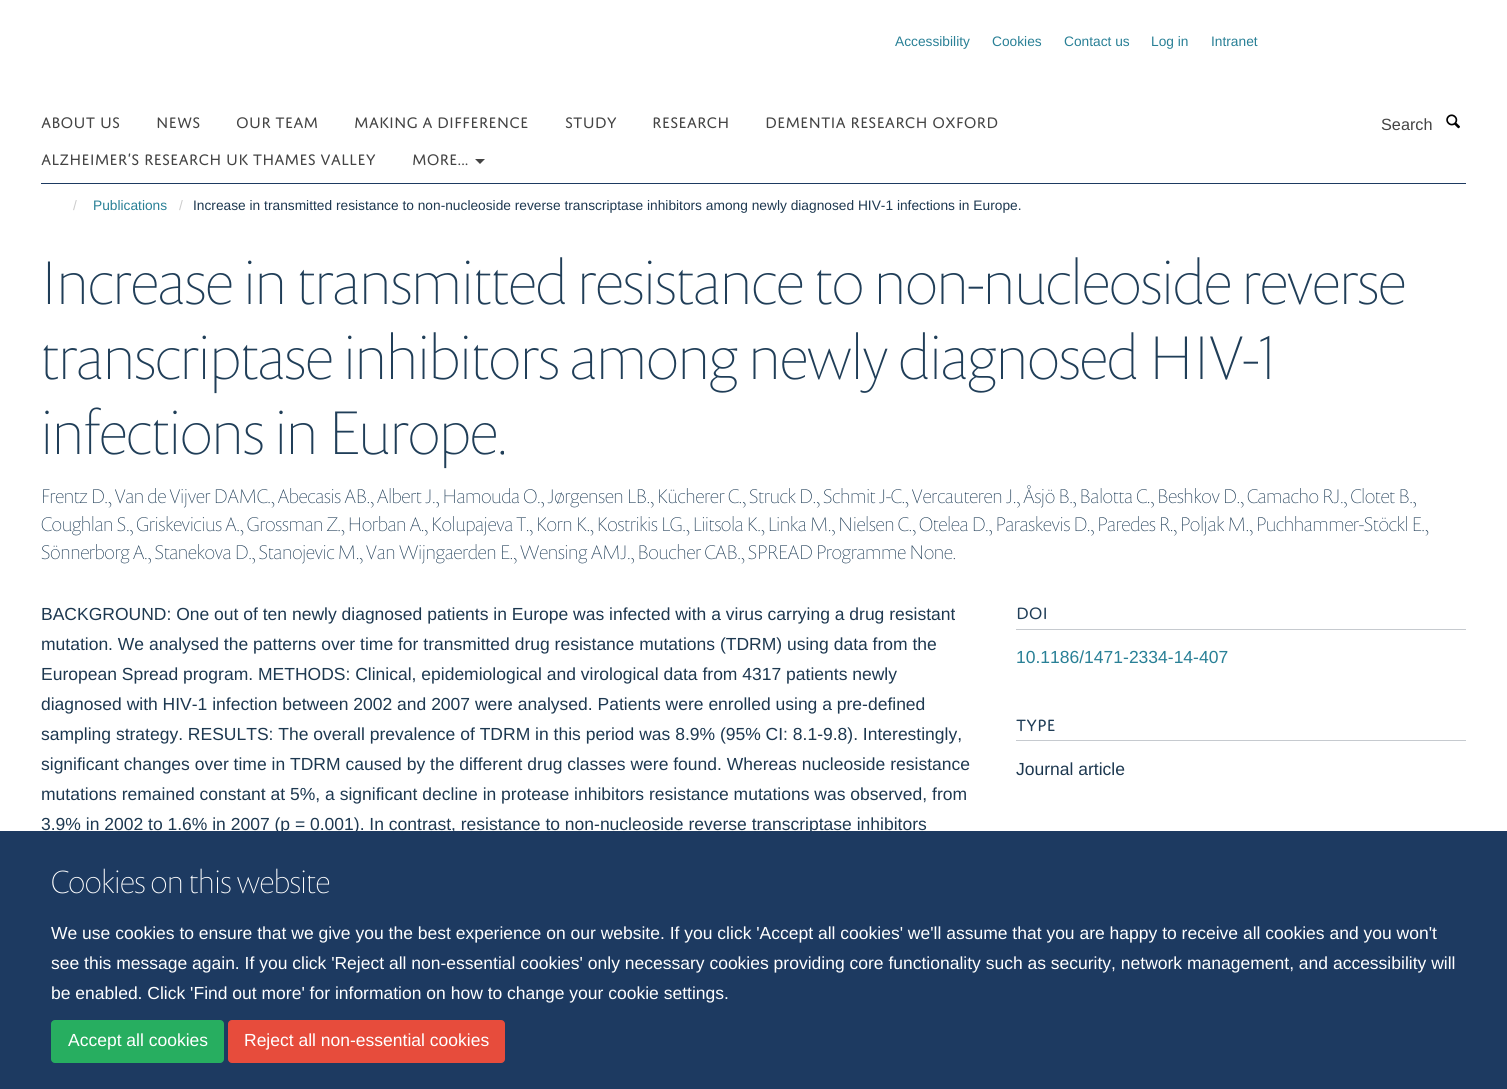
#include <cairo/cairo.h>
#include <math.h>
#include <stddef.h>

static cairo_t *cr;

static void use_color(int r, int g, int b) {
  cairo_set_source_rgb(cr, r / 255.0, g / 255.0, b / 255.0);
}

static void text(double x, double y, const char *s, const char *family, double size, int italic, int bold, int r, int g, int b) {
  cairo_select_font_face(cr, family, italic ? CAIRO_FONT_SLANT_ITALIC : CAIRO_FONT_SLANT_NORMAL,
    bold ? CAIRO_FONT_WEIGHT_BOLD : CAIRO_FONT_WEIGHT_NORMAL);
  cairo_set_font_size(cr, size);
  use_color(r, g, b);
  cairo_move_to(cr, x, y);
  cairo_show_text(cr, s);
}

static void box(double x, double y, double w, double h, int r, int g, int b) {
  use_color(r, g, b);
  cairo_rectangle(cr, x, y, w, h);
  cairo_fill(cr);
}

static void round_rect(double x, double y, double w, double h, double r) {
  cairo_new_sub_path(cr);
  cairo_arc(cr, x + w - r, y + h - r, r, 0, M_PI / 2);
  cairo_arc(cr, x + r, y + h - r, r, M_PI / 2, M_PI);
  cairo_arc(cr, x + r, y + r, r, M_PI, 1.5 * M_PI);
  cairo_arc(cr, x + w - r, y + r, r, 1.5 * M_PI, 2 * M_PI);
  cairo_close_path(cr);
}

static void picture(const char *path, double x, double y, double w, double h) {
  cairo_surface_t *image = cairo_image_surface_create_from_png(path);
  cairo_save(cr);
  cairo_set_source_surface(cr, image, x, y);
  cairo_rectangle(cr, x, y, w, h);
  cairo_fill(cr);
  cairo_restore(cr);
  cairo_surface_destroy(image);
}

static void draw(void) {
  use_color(255, 255, 255);
  cairo_paint(cr);
  box(41, 183, 1425, 1, 29, 58, 97);
  use_color(68, 68, 68);
  cairo_new_path(cr);
  cairo_move_to(cr, 475, 159);
  cairo_line_to(cr, 485, 159);
  cairo_line_to(cr, 480, 164);
  cairo_close_path(cr);
  cairo_fill(cr);
  picture("img_01.png", 1446, 114, 14, 15);
  box(1016, 629, 450, 1, 198, 202, 207);
  box(1016, 740, 450, 1, 198, 202, 207);
  text(895, 46, "Accessibility", "Liberation Sans", 13.75, 0, 0, 41, 128, 150);
  text(992, 46, "Cookies", "Liberation Sans", 13.75, 0, 0, 41, 128, 150);
  text(1064, 46, "Contact us", "Liberation Sans", 13.75, 0, 0, 41, 128, 150);
  text(1151, 46, "Log in", "Liberation Sans", 13.75, 0, 0, 41, 128, 150);
  text(1211, 46, "Intranet", "Liberation Sans", 13.75, 0, 0, 41, 128, 150);
  text(41, 128, "ABOUT US", "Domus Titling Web", 16.25, 0, 0, 68, 68, 68);
  text(156, 128, "NEWS", "Domus Titling Web", 16.25, 0, 0, 68, 68, 68);
  text(236, 128, "OUR TEAM", "Domus Titling Web", 16.25, 0, 0, 68, 68, 68);
  text(354, 128, "MAKING A DIFFERENCE", "Domus Titling Web", 16.25, 0, 0, 68, 68, 68);
  text(565, 128, "STUDY", "Domus Titling Web", 16.25, 0, 0, 68, 68, 68);
  text(652, 128, "RESEARCH", "Domus Titling Web", 16.25, 0, 0, 68, 68, 68);
  text(765, 128, "DEMENTIA RESEARCH OXFORD", "Domus Titling Web", 16.25, 0, 0, 68, 68, 68);
  text(41, 165, "ALZHEIMER’S RESEARCH UK THAMES VALLEY", "Domus Titling Web", 16.25, 0, 0, 68, 68, 68);
  text(412, 165, "MORE...", "Domus Titling Web", 16.25, 0, 0, 68, 68, 68);
  text(1381, 130, "Search", "Liberation Sans", 16.25, 0, 0, 68, 68, 68);
  text(73, 210, "/", "Liberation Sans", 13.75, 0, 0, 204, 204, 204);
  text(93, 210, "Publications", "Liberation Sans", 13.75, 0, 0, 41, 128, 150);
  text(179, 210, "/", "Liberation Sans", 13.75, 0, 0, 204, 204, 204);
  text(193, 210, "Increase in transmitted resistance to non-nucleoside reverse transcriptase inhibitors among newly diagnosed HIV-1 infections in Europe.", "Liberation Sans", 13.75, 0, 0, 29, 56, 80);
  text(41, 304, "Increase in transmitted resistance to non-nucleoside reverse", "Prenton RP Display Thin", 62.5, 0, 0, 32, 62, 88);
  text(41, 379, "transcriptase inhibitors among newly diagnosed HIV-1", "Prenton RP Display Thin", 62.5, 0, 0, 32, 62, 88);
  text(41, 454, "infections in Europe.", "Prenton RP Display Thin", 62.5, 0, 0, 32, 62, 88);
  text(41, 503, "Frentz D., Van de Vijver DAMC., Abecasis AB., Albert J., Hamouda O., Jørgensen LB., Kücherer C., Struck D., Schmit J-C., Vercauteren J., Åsjö B., Balotta C., Beshkov D., Camacho RJ., Clotet B.,", "Prenton RP Display Thin", 20, 0, 0, 32, 62, 88);
  text(41, 531, "Coughlan S., Griskevicius A., Grossman Z., Horban A., Kolupajeva T., Korn K., Kostrikis LG., Liitsola K., Linka M., Nielsen C., Otelea D., Paraskevis D., Paredes R., Poljak M., Puchhammer-Stöckl E.,", "Prenton RP Display Thin", 20, 0, 0, 32, 62, 88);
  text(41, 559, "Sönnerborg A., Stanekova D., Stanojevic M., Van Wijngaerden E., Wensing AMJ., Boucher CAB., SPREAD Programme None.", "Prenton RP Display Thin", 20, 0, 0, 32, 62, 88);
  text(41, 620, "BACKGROUND: One out of ten newly diagnosed patients in Europe was infected with a virus carrying a drug resistant", "Liberation Sans", 17.5, 0, 0, 29, 56, 80);
  text(41, 650, "mutation. We analysed the patterns over time for transmitted drug resistance mutations (TDRM) using data from the", "Liberation Sans", 17.5, 0, 0, 29, 56, 80);
  text(41, 680, "European Spread program. METHODS: Clinical, epidemiological and virological data from 4317 patients newly", "Liberation Sans", 17.5, 0, 0, 29, 56, 80);
  text(41, 710, "diagnosed with HIV-1 infection between 2002 and 2007 were analysed. Patients were enrolled using a pre-defined", "Liberation Sans", 17.5, 0, 0, 29, 56, 80);
  text(41, 740, "sampling strategy. RESULTS: The overall prevalence of TDRM in this period was 8.9% (95% CI: 8.1-9.8). Interestingly,", "Liberation Sans", 17.5, 0, 0, 29, 56, 80);
  text(41, 770, "significant changes over time in TDRM caused by the different drug classes were found. Whereas nucleoside resistance", "Liberation Sans", 17.5, 0, 0, 29, 56, 80);
  text(41, 800, "mutations remained constant at 5%, a significant decline in protease inhibitors resistance mutations was observed, from", "Liberation Sans", 17.5, 0, 0, 29, 56, 80);
  text(41, 830, "3.9% in 2002 to 1.6% in 2007 (p = 0.001). In contrast, resistance to non-nucleoside reverse transcriptase inhibitors", "Liberation Sans", 17.5, 0, 0, 29, 56, 80);
  text(1016, 619, "DOI", "Domus Titling Web", 17.5, 0, 0, 32, 62, 88);
  text(1016, 663, "10.1186/1471-2334-14-407", "Liberation Sans", 17.5, 0, 0, 41, 128, 150);
  text(1016, 731, "TYPE", "Domus Titling Web", 17.5, 0, 0, 32, 62, 88);
  text(1016, 775, "Journal article", "Liberation Sans", 17.5, 0, 0, 29, 56, 80);
  box(0, 831, 1507, 258, 29, 58, 97);
  text(51, 893, "Cookies on this website", "Prenton RP Display Thin", 32.5, 0, 0, 255, 255, 255);
  text(51, 939, "We use cookies to ensure that we give you the best experience on our website. If you click 'Accept all cookies' we'll assume that you are happy to receive all cookies and you won't", "Liberation Sans", 17.5, 0, 0, 255, 255, 255);
  text(51, 969, "see this message again. If you click 'Reject all non-essential cookies' only necessary cookies providing core functionality such as security, network management, and accessibility will", "Liberation Sans", 17.5, 0, 0, 255, 255, 255);
  text(51, 999, "be enabled. Click 'Find out more' for information on how to change your cookie settings.", "Liberation Sans", 17.5, 0, 0, 255, 255, 255);
  use_color(39, 174, 96);
  round_rect(51.5, 1020.5, 172, 42, 3.5);
  cairo_fill_preserve(cr);
  cairo_set_line_width(cr, 1);
  cairo_stroke(cr);
  text(68, 1046, "Accept all cookies", "Liberation Sans", 17.5, 0, 0, 255, 255, 255);
  use_color(231, 76, 60);
  round_rect(228.5, 1020.5, 276, 42, 3.5);
  cairo_fill_preserve(cr);
  cairo_stroke(cr);
  text(244, 1046, "Reject all non-essential cookies", "Liberation Sans", 17.5, 0, 0, 255, 255, 255);
}

int main(void) {
  cairo_surface_t *surface = cairo_image_surface_create(CAIRO_FORMAT_RGB24, 1507, 1089);
  cr = cairo_create(surface);
  cairo_font_options_t *options = cairo_font_options_create();
  cairo_font_options_set_hint_metrics(options, CAIRO_HINT_METRICS_OFF);
  cairo_font_options_set_hint_style(options, CAIRO_HINT_STYLE_NONE);
  cairo_set_font_options(cr, options);
  cairo_set_miter_limit(cr, 4);
  draw();
  cairo_surface_write_to_png(surface, "out.png");
  cairo_font_options_destroy(options);
  cairo_destroy(cr);
  cairo_surface_destroy(surface);
  return 0;
}
